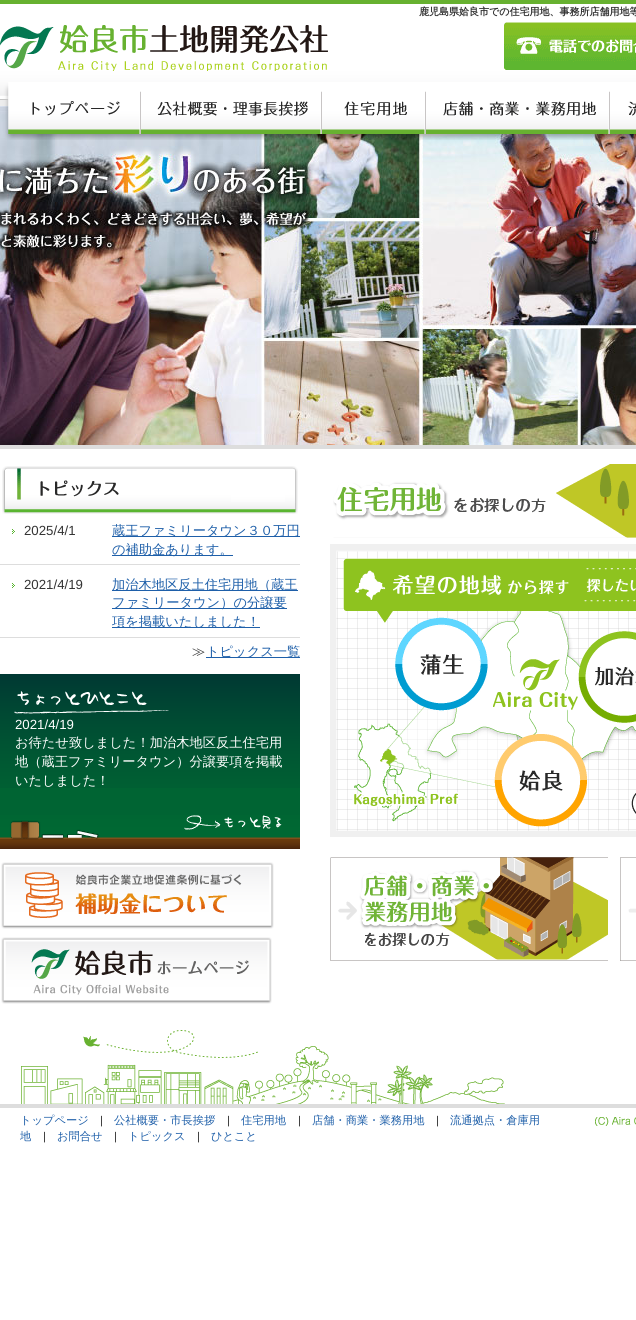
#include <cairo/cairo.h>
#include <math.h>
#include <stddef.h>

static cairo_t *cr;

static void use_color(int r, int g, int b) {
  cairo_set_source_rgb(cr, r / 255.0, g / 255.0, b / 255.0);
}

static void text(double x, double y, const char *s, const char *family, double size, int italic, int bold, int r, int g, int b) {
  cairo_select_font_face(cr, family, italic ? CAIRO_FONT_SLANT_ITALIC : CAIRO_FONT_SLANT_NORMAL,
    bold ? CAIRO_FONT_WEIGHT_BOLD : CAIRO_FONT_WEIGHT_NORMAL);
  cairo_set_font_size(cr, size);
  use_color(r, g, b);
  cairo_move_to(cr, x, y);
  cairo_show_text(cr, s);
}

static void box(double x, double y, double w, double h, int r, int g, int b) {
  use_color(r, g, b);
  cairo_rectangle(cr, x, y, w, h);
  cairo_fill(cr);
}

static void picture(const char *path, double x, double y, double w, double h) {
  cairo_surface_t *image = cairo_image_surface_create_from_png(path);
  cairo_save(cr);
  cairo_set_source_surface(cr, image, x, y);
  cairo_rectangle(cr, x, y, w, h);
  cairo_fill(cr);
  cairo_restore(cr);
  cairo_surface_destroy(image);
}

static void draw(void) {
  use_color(255, 255, 255);
  cairo_paint(cr);
  picture("img_01.png", 0, 0, 636, 106);
  picture("img_02.png", 0, 106, 636, 339);
  picture("img_03.png", 504, 22, 132, 48);
  picture("img_04.png", 0, 25, 328, 46);
  picture("img_05.png", 0, 82, 636, 58);
  box(0, 445, 636, 4, 221, 221, 221);
  picture("img_06.png", 2, 466, 296, 48);
  box(0, 564, 300, 1, 221, 221, 221);
  picture("img_07.png", 12, 529, 3, 5);
  box(112, 536, 188, 1, 30, 95, 169);
  box(112, 555, 121, 1, 30, 95, 169);
  box(0, 637, 300, 1, 221, 221, 221);
  picture("img_07.png", 12, 583, 3, 5);
  box(112, 590, 186, 1, 30, 95, 169);
  box(112, 608, 175, 1, 30, 95, 169);
  box(112, 627, 148, 1, 30, 95, 169);
  box(206, 657, 94, 1, 30, 95, 169);
  box(0, 788, 300, 27, 0, 100, 51);
  picture("img_08.png", 0, 674, 300, 114);
  picture("img_09.png", 0, 815, 300, 34);
  picture("img_10.png", 1, 862, 273, 67);
  picture("img_11.png", 1, 937, 271, 67);
  picture("img_12.png", 333, 464, 303, 74);
  picture("img_13.png", 330, 544, 306, 293);
  picture("img_14.png", 330, 857, 278, 104);
  picture("img_15.png", 620, 857, 16, 104);
  picture("img_16.png", 21, 1030, 484, 74);
  box(0, 1104, 636, 4, 221, 221, 221);
  picture("img_17.png", 595, 1117, 41, 9);
  text(419, 15, "鹿児島県姶良市での住宅用地、事務所店舗用地等", "WenQuanYi Zen Hei", 10, 0, 1, 51, 51, 51);
  text(24, 535, "2025/4/1", "Liberation Sans", 13.25, 0, 0, 51, 51, 51);
  text(112, 535, "蔵王ファミリータウン３０万円", "WenQuanYi Zen Hei Medium", 13.25, 0, 0, 30, 95, 169);
  text(112, 554, "の補助金あります。", "WenQuanYi Zen Hei Medium", 13.25, 0, 0, 30, 95, 169);
  text(24, 589, "2021/4/19", "Liberation Sans", 13.25, 0, 0, 51, 51, 51);
  text(112, 589, "加治木地区反土住宅用地（蔵王", "WenQuanYi Zen Hei Medium", 13.25, 0, 0, 30, 95, 169);
  text(112, 607, "ファミリータウン）の分譲要", "WenQuanYi Zen Hei Medium", 13.25, 0, 0, 30, 95, 169);
  text(112, 626, "項を掲載いたしました！", "WenQuanYi Zen Hei Medium", 13.25, 0, 0, 30, 95, 169);
  text(192, 656, "≫", "WenQuanYi Zen Hei Medium", 13.25, 0, 0, 51, 51, 51);
  text(206, 656, "トピックス一覧", "WenQuanYi Zen Hei Medium", 13.25, 0, 0, 30, 95, 169);
  text(15, 729, "2021/4/19", "Liberation Sans", 13.25, 0, 0, 255, 255, 255);
  text(15, 747, "お待たせ致しました！加治木地区反土住宅用", "WenQuanYi Zen Hei Medium", 13.25, 0, 0, 255, 255, 255);
  text(15, 766, "地（蔵王ファミリータウン）分譲要項を掲載", "WenQuanYi Zen Hei Medium", 13.25, 0, 0, 255, 255, 255);
  text(15, 785, "いたしました！", "WenQuanYi Zen Hei Medium", 13.25, 0, 0, 255, 255, 255);
  text(20, 1124, "トップページ", "WenQuanYi Zen Hei Medium", 11.25, 0, 0, 30, 95, 169);
  text(100, 1124, "|", "Liberation Sans", 11.25, 0, 0, 51, 51, 51);
  text(114, 1124, "公社概要・市長挨拶", "WenQuanYi Zen Hei Medium", 11.25, 0, 0, 30, 95, 169);
  text(227, 1124, "|", "Liberation Sans", 11.25, 0, 0, 51, 51, 51);
  text(241, 1124, "住宅用地", "WenQuanYi Zen Hei Medium", 11.25, 0, 0, 30, 95, 169);
  text(298, 1124, "|", "Liberation Sans", 11.25, 0, 0, 51, 51, 51);
  text(312, 1124, "店舗・商業・業務用地", "WenQuanYi Zen Hei Medium", 11.25, 0, 0, 30, 95, 169);
  text(436, 1124, "|", "Liberation Sans", 11.25, 0, 0, 51, 51, 51);
  text(450, 1124, "流通拠点・倉庫用", "WenQuanYi Zen Hei Medium", 11.25, 0, 0, 30, 95, 169);
  text(20, 1140, "地", "WenQuanYi Zen Hei Medium", 11.25, 0, 0, 30, 95, 169);
  text(43, 1140, "|", "Liberation Sans", 11.25, 0, 0, 51, 51, 51);
  text(57, 1140, "お問合せ", "WenQuanYi Zen Hei Medium", 11.25, 0, 0, 30, 95, 169);
  text(114, 1140, "|", "Liberation Sans", 11.25, 0, 0, 51, 51, 51);
  text(128, 1140, "トピックス", "WenQuanYi Zen Hei Medium", 11.25, 0, 0, 30, 95, 169);
  text(197, 1140, "|", "Liberation Sans", 11.25, 0, 0, 51, 51, 51);
  text(211, 1140, "ひとこと", "WenQuanYi Zen Hei Medium", 11.25, 0, 0, 30, 95, 169);
}

int main(void) {
  cairo_surface_t *surface = cairo_image_surface_create(CAIRO_FORMAT_RGB24, 636, 1320);
  cr = cairo_create(surface);
  cairo_font_options_t *options = cairo_font_options_create();
  cairo_font_options_set_hint_metrics(options, CAIRO_HINT_METRICS_OFF);
  cairo_font_options_set_hint_style(options, CAIRO_HINT_STYLE_NONE);
  cairo_set_font_options(cr, options);
  cairo_set_miter_limit(cr, 4);
  draw();
  cairo_surface_write_to_png(surface, "out.png");
  cairo_font_options_destroy(options);
  cairo_destroy(cr);
  cairo_surface_destroy(surface);
  return 0;
}
